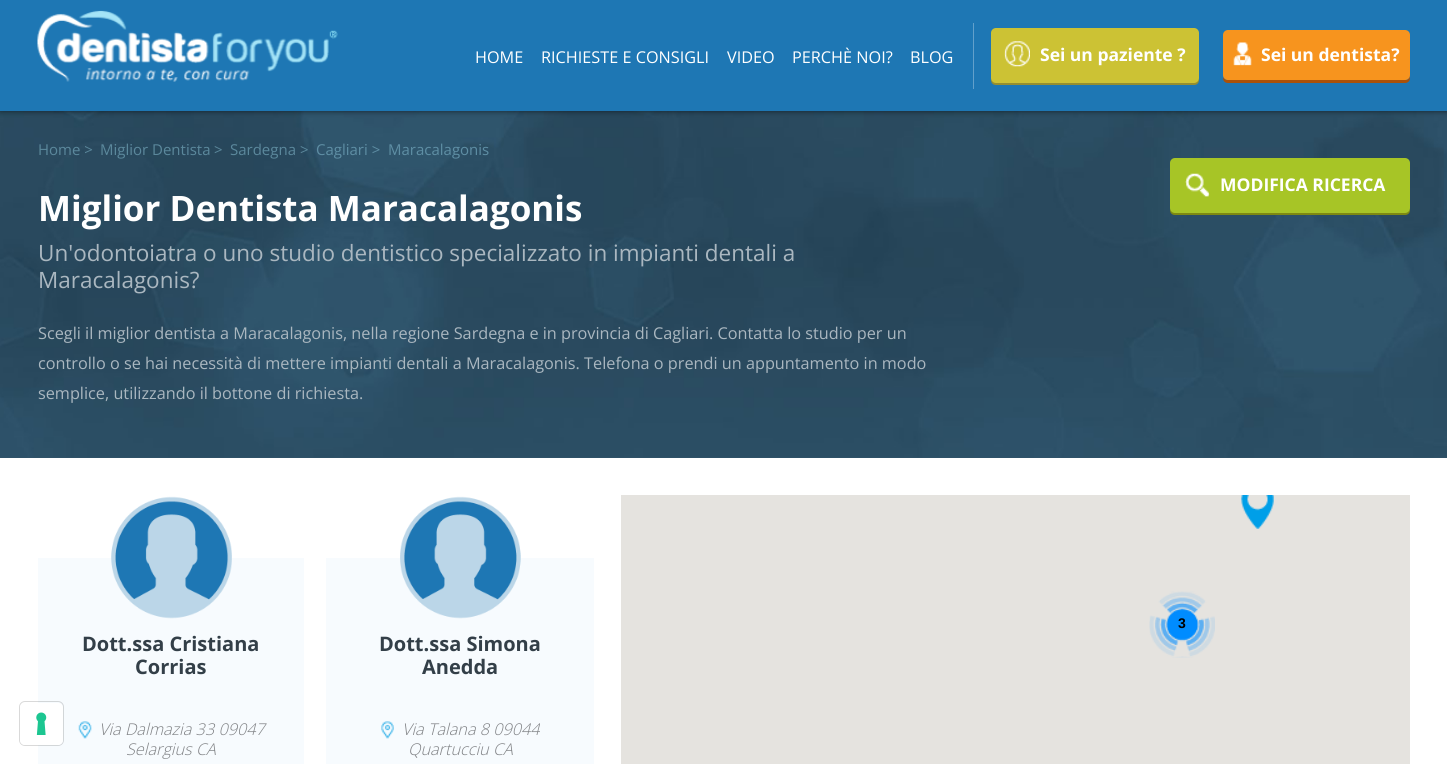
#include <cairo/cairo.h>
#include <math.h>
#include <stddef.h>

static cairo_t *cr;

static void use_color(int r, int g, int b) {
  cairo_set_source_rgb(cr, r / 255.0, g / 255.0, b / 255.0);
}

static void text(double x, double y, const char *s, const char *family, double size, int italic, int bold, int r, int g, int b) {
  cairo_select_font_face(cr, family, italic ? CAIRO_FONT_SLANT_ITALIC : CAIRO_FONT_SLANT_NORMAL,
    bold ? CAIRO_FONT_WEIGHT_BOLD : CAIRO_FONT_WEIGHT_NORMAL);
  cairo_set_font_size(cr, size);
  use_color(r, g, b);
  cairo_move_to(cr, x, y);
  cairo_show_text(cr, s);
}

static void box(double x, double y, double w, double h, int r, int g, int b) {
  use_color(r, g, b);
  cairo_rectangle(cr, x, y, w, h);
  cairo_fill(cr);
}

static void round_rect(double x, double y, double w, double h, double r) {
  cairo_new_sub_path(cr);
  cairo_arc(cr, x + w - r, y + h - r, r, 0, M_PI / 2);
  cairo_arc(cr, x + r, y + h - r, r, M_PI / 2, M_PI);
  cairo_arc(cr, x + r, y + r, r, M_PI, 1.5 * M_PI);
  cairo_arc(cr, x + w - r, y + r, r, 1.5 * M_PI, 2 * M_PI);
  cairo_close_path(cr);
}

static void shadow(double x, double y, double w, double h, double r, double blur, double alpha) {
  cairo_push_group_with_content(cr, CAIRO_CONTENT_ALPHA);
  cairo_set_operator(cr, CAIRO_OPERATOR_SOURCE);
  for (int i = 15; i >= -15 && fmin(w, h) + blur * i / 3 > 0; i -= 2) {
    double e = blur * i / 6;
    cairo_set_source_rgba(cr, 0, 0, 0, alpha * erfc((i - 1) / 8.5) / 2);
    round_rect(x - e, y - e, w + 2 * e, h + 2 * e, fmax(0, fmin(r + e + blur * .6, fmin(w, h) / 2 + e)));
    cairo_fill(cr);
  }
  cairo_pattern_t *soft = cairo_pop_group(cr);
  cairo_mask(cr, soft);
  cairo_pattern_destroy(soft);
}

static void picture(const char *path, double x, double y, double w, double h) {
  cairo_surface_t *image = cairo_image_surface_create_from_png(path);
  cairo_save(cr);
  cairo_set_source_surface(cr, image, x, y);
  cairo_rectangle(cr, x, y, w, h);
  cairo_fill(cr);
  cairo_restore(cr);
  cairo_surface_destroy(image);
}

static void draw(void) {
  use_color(50, 85, 107);
  cairo_paint(cr);
  picture("img_04.png", 0, 111, 1447, 347);
  use_color(0, 0, 0);
  shadow(0, 0, 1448, 111, 0, 3, 0.6);
  box(0, 0, 1447, 111, 30, 119, 180);
  picture("img_01.png", 37, 10, 301, 72);
  box(973, 23, 1, 66, 98, 160, 203);
  use_color(149, 142, 47);
  cairo_new_path(cr);
  cairo_move_to(cr, 991, 33);
  cairo_line_to(cr, 991, 80);
  cairo_curve_to(cr, 991, 83, 993, 85, 996, 85);
  cairo_line_to(cr, 1194, 85);
  cairo_curve_to(cr, 1197, 85, 1199, 83, 1199, 80);
  cairo_line_to(cr, 1199, 33);
  cairo_line_to(cr, 1199, 78);
  cairo_curve_to(cr, 1199, 80, 1197, 82, 1194, 82);
  cairo_line_to(cr, 996, 82);
  cairo_curve_to(cr, 993, 82, 991, 80, 991, 78);
  cairo_close_path(cr);
  cairo_fill(cr);
  use_color(204, 194, 52);
  round_rect(991, 28, 208, 55, 5);
  cairo_fill(cr);
  picture("img_02.png", 1004, 41, 26, 26);
  use_color(170, 81, 9);
  cairo_new_path(cr);
  cairo_move_to(cr, 1223, 77);
  cairo_line_to(cr, 1223, 78);
  cairo_curve_to(cr, 1223, 81, 1225, 83, 1228, 83);
  cairo_line_to(cr, 1405, 83);
  cairo_curve_to(cr, 1408, 83, 1410, 81, 1410, 78);
  cairo_line_to(cr, 1410, 75);
  cairo_curve_to(cr, 1410, 78, 1408, 80, 1405, 80);
  cairo_line_to(cr, 1228, 80);
  cairo_curve_to(cr, 1226, 80, 1224, 79, 1223, 77);
  cairo_close_path(cr);
  cairo_fill(cr);
  use_color(247, 148, 30);
  round_rect(1223, 30, 187, 50, 5);
  cairo_fill(cr);
  picture("img_03.png", 1233, 42, 19, 24);
  use_color(126, 137, 18);
  cairo_new_path(cr);
  cairo_move_to(cr, 1170, 208);
  cairo_line_to(cr, 1170, 210);
  cairo_curve_to(cr, 1170, 213, 1172, 215, 1175, 215);
  cairo_line_to(cr, 1405, 215);
  cairo_curve_to(cr, 1408, 215, 1410, 213, 1410, 210);
  cairo_line_to(cr, 1410, 208);
  cairo_curve_to(cr, 1410, 210, 1408, 212, 1405, 212);
  cairo_line_to(cr, 1175, 212);
  cairo_curve_to(cr, 1172, 212, 1170, 210, 1170, 208);
  cairo_close_path(cr);
  cairo_fill(cr);
  use_color(167, 197, 38);
  round_rect(1170, 158, 240, 55, 5);
  cairo_fill(cr);
  picture("img_05.png", 1185, 173, 25, 24);
  box(0, 458, 1447, 306, 255, 255, 255);
  box(38, 558, 266, 206, 247, 251, 254);
  round_rect(19.5, 701.5, 44, 44, 5.5);
  cairo_set_source_rgba(cr, 0, 0, 0, 0.15);
  cairo_set_line_width(cr, 1);
  cairo_stroke(cr);
  use_color(255, 255, 255);
  round_rect(20, 703, 43, 42, 5);
  cairo_fill(cr);
  picture("img_06.png", 36, 712, 11, 23);
  box(621, 495, 789, 269, 229, 227, 223);
  picture("img_07.png", 1241, 495, 33, 34);
  picture("img_08.png", 1149, 591, 66, 67);
  picture("img_09.png", 111, 496, 121, 123);
  picture("img_10.png", 78, 721, 14, 18);
  box(326, 558, 268, 206, 247, 251, 254);
  picture("img_11.png", 400, 496, 121, 123);
  picture("img_12.png", 381, 721, 13, 18);
  text(475, 63, "HOME", "Open Sans", 16.25, 0, 0, 255, 255, 255);
  text(541, 63, "RICHIESTE E CONSIGLI", "Open Sans", 16.25, 0, 0, 255, 255, 255);
  text(727, 63, "VIDEO", "Open Sans", 16.25, 0, 0, 255, 255, 255);
  text(792, 63, "PERCHÈ NOI?", "Open Sans", 16.25, 0, 0, 255, 255, 255);
  text(910, 63, "BLOG", "Open Sans", 16.25, 0, 0, 255, 255, 255);
  text(1040, 61, "Sei un paziente ?", "Open Sans", 17.5, 0, 1, 255, 255, 255);
  text(1261, 61, "Sei un dentista?", "Open Sans", 17.5, 0, 1, 255, 255, 255);
  text(38, 155, "Home >", "Open Sans", 15, 0, 0, 91, 136, 156);
  text(100, 155, "Miglior Dentista", "Open Sans", 15, 0, 0, 91, 136, 156);
  text(214, 155, ">", "Open Sans", 15, 0, 0, 91, 136, 156);
  text(230, 155, "Sardegna", "Open Sans", 15, 0, 0, 91, 136, 156);
  text(300, 155, ">", "Open Sans", 15, 0, 0, 91, 136, 156);
  text(316, 155, "Cagliari >", "Open Sans", 15, 0, 0, 94, 142, 164);
  text(388, 155, "Maracalagonis", "Open Sans", 15, 0, 0, 94, 142, 164);
  text(38, 221, "Miglior Dentista Maracalagonis", "Open Sans", 35, 0, 1, 255, 255, 255);
  text(38, 261, "Un'odontoiatra o uno studio dentistico specializzato in impianti dentali a", "Open Sans", 22.5, 0, 0, 170, 183, 192);
  text(38, 288, "Maracalagonis?", "Open Sans", 22.5, 0, 0, 170, 183, 192);
  text(38, 339, "Scegli il miglior dentista a Maracalagonis, nella regione Sardegna e in provincia di Cagliari. Contatta lo studio per un", "Open Sans", 16.25, 0, 0, 170, 183, 192);
  text(38, 369, "controllo o se hai necessità di mettere impianti dentali a Maracalagonis. Telefona o prendi un appuntamento in modo", "Open Sans", 16.25, 0, 0, 170, 183, 192);
  text(38, 399, "semplice, utilizzando il bottone di richiesta.", "Open Sans", 16.25, 0, 0, 170, 183, 192);
  text(1220, 191, "MODIFICA RICERCA", "Open Sans", 17.5, 0, 1, 255, 255, 255);
  text(1178, 628, "3", "Liberation Sans", 14, 0, 1, 0, 0, 0);
  text(82, 651, "Dott.ssa Cristiana", "Open Sans", 20, 0, 1, 51, 63, 72);
  text(135, 674, "Corrias", "Open Sans", 20, 0, 1, 51, 63, 72);
  text(99, 735, "Via Dalmazia 33 09047", "Open Sans Light", 16.25, 1, 0, 128, 130, 133);
  text(126, 755, "Selargius CA", "Open Sans Light", 16.25, 1, 0, 128, 130, 133);
  text(379, 651, "Dott.ssa Simona", "Open Sans", 20, 0, 1, 51, 63, 72);
  text(422, 674, "Anedda", "Open Sans", 20, 0, 1, 51, 63, 72);
  text(402, 735, "Via Talana 8 09044", "Open Sans Light", 16.25, 1, 0, 128, 130, 133);
  text(408, 755, "Quartucciu CA", "Open Sans Light", 16.25, 1, 0, 128, 130, 133);
}

int main(void) {
  cairo_surface_t *surface = cairo_image_surface_create(CAIRO_FORMAT_RGB24, 1447, 764);
  cr = cairo_create(surface);
  cairo_font_options_t *options = cairo_font_options_create();
  cairo_font_options_set_hint_metrics(options, CAIRO_HINT_METRICS_OFF);
  cairo_font_options_set_hint_style(options, CAIRO_HINT_STYLE_NONE);
  cairo_set_font_options(cr, options);
  cairo_set_miter_limit(cr, 4);
  draw();
  cairo_surface_write_to_png(surface, "out.png");
  cairo_font_options_destroy(options);
  cairo_destroy(cr);
  cairo_surface_destroy(surface);
  return 0;
}
